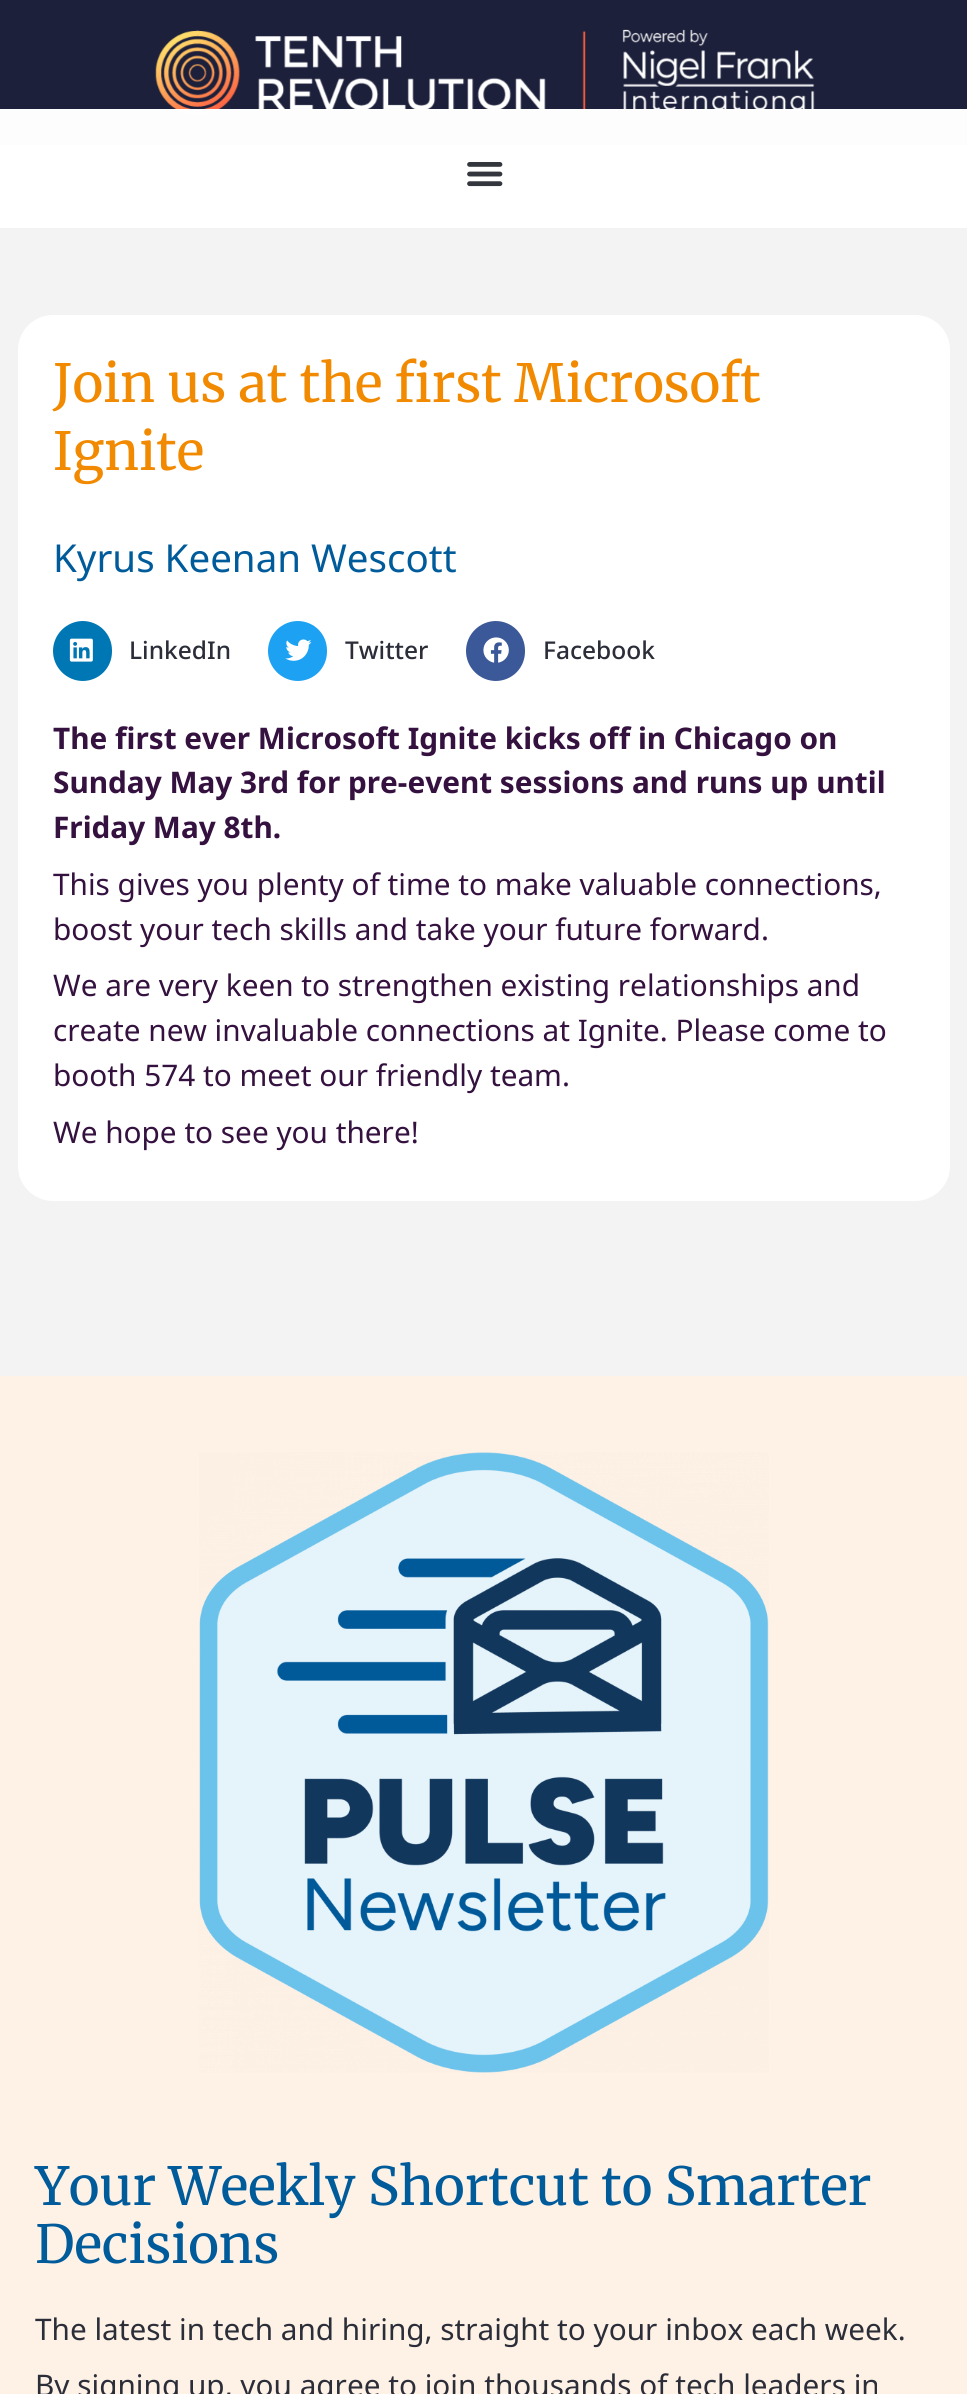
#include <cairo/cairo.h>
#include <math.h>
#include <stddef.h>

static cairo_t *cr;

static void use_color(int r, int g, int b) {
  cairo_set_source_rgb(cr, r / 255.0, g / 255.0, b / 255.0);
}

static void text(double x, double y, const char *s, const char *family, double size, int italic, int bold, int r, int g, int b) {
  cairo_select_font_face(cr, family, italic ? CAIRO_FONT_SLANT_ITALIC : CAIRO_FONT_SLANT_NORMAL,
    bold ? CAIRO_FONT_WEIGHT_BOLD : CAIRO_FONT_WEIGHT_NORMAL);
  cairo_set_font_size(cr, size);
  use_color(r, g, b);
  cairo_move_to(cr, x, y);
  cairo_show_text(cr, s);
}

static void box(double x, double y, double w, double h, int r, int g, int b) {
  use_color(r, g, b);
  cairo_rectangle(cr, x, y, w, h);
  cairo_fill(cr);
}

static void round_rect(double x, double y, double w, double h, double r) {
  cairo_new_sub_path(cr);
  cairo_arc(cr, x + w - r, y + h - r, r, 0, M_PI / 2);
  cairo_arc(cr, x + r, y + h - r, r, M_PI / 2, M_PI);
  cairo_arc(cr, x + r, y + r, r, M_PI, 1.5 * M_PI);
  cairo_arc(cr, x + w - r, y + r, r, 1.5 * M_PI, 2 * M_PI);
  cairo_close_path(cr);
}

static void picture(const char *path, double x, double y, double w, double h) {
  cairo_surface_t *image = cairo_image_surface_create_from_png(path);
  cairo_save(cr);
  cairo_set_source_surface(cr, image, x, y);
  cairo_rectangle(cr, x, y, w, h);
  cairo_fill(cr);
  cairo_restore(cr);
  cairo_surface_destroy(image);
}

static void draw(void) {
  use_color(255, 255, 255);
  cairo_paint(cr);
  box(0, 0, 967, 145, 28, 32, 59);
  picture("img_01.png", 155, 29, 660, 87);
  cairo_set_source_rgba(cr, 1, 1, 1, 0.99);
  cairo_rectangle(cr, 0, 109, 967, 36);
  cairo_fill(cr);
  picture("img_02.png", 467, 162, 36, 25);
  box(0, 228, 967, 1148, 243, 243, 243);
  use_color(255, 255, 255);
  round_rect(18, 315, 932, 886, 35);
  cairo_fill(cr);
  use_color(0, 119, 181);
  cairo_new_path(cr);
  cairo_move_to(cr, 83, 621);
  cairo_line_to(cr, 82.5, 621);
  cairo_curve_to(cr, 99, 621, 112, 634, 112, 650.5);
  cairo_line_to(cr, 112, 651.5);
  cairo_curve_to(cr, 112, 668, 99, 681, 82.5, 681);
  cairo_line_to(cr, 83, 681);
  cairo_curve_to(cr, 66.5, 681, 53, 667.5, 53, 651);
  cairo_curve_to(cr, 53, 634.5, 66.5, 621, 83, 621);
  cairo_close_path(cr);
  cairo_fill(cr);
  picture("img_03.png", 69, 638, 24, 24);
  use_color(29, 161, 242);
  cairo_new_path(cr);
  cairo_move_to(cr, 298, 621);
  cairo_line_to(cr, 297.5, 621);
  cairo_curve_to(cr, 314, 621, 327, 634, 327, 650.5);
  cairo_line_to(cr, 327, 651.5);
  cairo_curve_to(cr, 327, 668, 314, 681, 297.5, 681);
  cairo_line_to(cr, 298, 681);
  cairo_curve_to(cr, 281.5, 681, 268, 667.5, 268, 651);
  cairo_curve_to(cr, 268, 634.5, 281.5, 621, 298, 621);
  cairo_close_path(cr);
  cairo_fill(cr);
  picture("img_04.png", 285, 639, 27, 22);
  use_color(59, 89, 152);
  cairo_new_path(cr);
  cairo_move_to(cr, 496, 621);
  cairo_line_to(cr, 495.5, 621);
  cairo_curve_to(cr, 512, 621, 525, 634, 525, 650.5);
  cairo_line_to(cr, 525, 651.5);
  cairo_curve_to(cr, 525, 668, 512, 681, 495.5, 681);
  cairo_line_to(cr, 496, 681);
  cairo_curve_to(cr, 479.5, 681, 466, 667.5, 466, 651);
  cairo_curve_to(cr, 466, 634.5, 479.5, 621, 496, 621);
  cairo_close_path(cr);
  cairo_fill(cr);
  picture("img_05.png", 483, 637, 26, 26);
  box(0, 1376, 967, 1018, 254, 242, 231);
  picture("img_06.png", 199, 1452, 570, 621);
  text(53, 402, "Join us at the first Microsoft", "Merriweather", 52.5, 0, 0, 241, 138, 0);
  text(53, 470, "Ignite", "Merriweather", 52.5, 0, 0, 241, 138, 0);
  text(53, 572, "Kyrus Keenan Wescott", "Noto Sans", 38.5, 0, 0, 0, 91, 155);
  text(129, 659, "LinkedIn", "Noto Sans Medium", 24.5, 0, 0, 43, 46, 57);
  text(345, 659, "Twitter", "Noto Sans Medium", 24.5, 0, 0, 43, 46, 57);
  text(543, 659, "Facebook", "Noto Sans Medium", 24.5, 0, 0, 43, 46, 57);
  text(53, 749, "The first ever Microsoft Ignite kicks off in Chicago on", "Noto Sans", 29.75, 0, 1, 52, 17, 63);
  text(53, 793, "Sunday May 3rd for pre-event sessions and runs up until", "Noto Sans", 29.75, 0, 1, 52, 17, 63);
  text(53, 838, "Friday May 8th.", "Noto Sans", 29.75, 0, 1, 52, 17, 63);
  text(53, 895, "This gives you plenty of time to make valuable connections,", "Noto Sans", 29.75, 0, 0, 52, 17, 63);
  text(53, 940, "boost your tech skills and take your future forward.", "Noto Sans", 29.75, 0, 0, 52, 17, 63);
  text(53, 996, "We are very keen to strengthen existing relationships and", "Noto Sans", 29.75, 0, 0, 52, 17, 63);
  text(53, 1041, "create new invaluable connections at Ignite. Please come to", "Noto Sans", 29.75, 0, 0, 52, 17, 63);
  text(53, 1086, "booth 574 to meet our friendly team.", "Noto Sans", 29.75, 0, 0, 52, 17, 63);
  text(53, 1143, "We hope to see you there!", "Noto Sans", 29.75, 0, 0, 52, 17, 63);
  text(35, 2205, "Your Weekly Shortcut to Smarter", "Merriweather", 52.5, 0, 0, 0, 91, 155);
  text(35, 2263, "Decisions", "Merriweather", 52.5, 0, 0, 0, 91, 155);
  text(35, 2340, "The latest in tech and hiring, straight to your inbox each week.", "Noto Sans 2", 29.75, 0, 0, 43, 46, 57);
  text(35, 2396, "By signing up, you agree to join thousands of tech leaders in", "Noto Sans 2", 29.75, 0, 0, 43, 46, 57);
}

int main(void) {
  cairo_surface_t *surface = cairo_image_surface_create(CAIRO_FORMAT_RGB24, 967, 2394);
  cr = cairo_create(surface);
  cairo_font_options_t *options = cairo_font_options_create();
  cairo_font_options_set_hint_metrics(options, CAIRO_HINT_METRICS_OFF);
  cairo_font_options_set_hint_style(options, CAIRO_HINT_STYLE_NONE);
  cairo_set_font_options(cr, options);
  cairo_set_miter_limit(cr, 4);
  draw();
  cairo_surface_write_to_png(surface, "out.png");
  cairo_font_options_destroy(options);
  cairo_destroy(cr);
  cairo_surface_destroy(surface);
  return 0;
}
